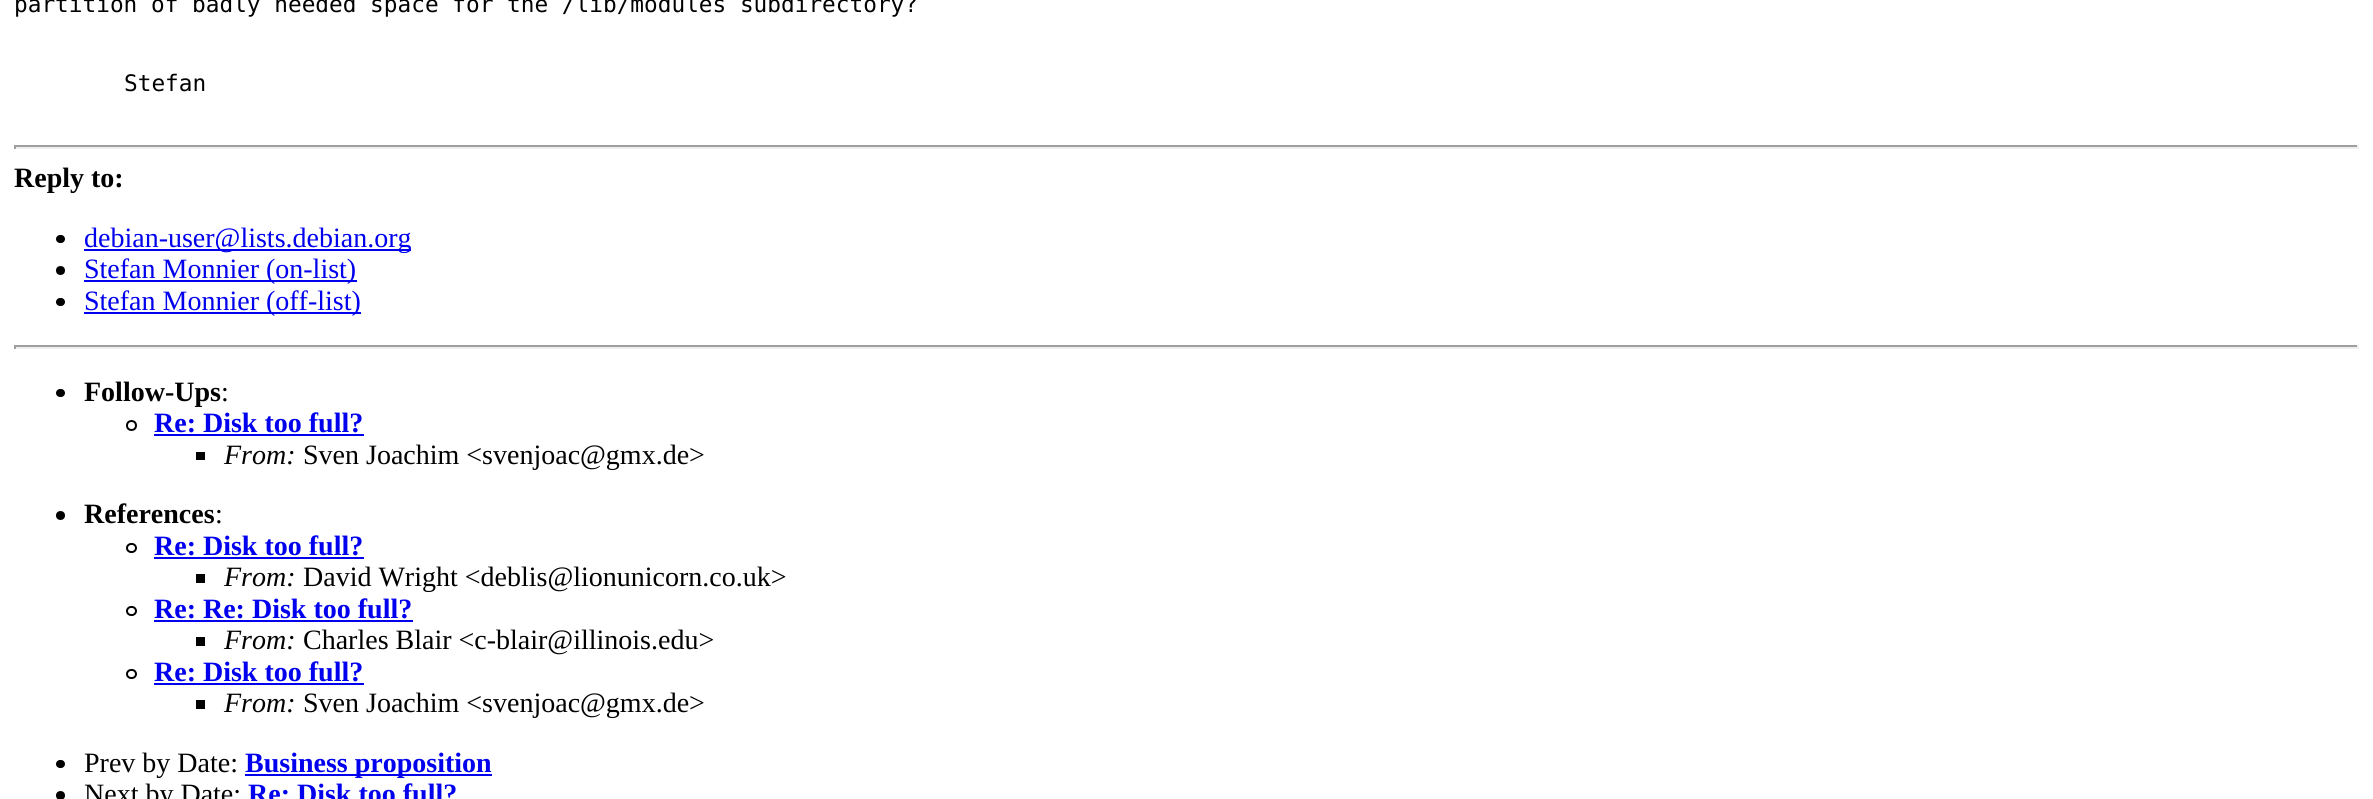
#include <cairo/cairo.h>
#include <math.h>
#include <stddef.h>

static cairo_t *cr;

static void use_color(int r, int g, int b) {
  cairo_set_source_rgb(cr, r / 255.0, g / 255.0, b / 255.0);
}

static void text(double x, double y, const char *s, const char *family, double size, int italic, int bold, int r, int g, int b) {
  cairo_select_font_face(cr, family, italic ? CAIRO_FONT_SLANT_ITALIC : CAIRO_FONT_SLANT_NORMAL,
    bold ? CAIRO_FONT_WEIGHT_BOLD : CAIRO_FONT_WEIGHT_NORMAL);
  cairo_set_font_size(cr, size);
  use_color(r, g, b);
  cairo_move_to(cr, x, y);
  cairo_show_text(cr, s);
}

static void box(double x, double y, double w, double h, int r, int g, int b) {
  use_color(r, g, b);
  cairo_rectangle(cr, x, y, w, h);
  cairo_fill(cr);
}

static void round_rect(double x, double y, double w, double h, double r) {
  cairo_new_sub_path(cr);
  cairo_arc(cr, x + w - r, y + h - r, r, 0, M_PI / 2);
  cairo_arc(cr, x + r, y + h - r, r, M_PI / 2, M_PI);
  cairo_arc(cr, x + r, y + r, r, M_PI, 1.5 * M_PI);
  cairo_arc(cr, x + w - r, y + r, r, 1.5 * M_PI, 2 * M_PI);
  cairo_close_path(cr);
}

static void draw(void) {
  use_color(255, 255, 255);
  cairo_paint(cr);
  box(14, 145, 2345, 2, 159, 159, 159);
  box(2357, 145, 2, 4, 238, 238, 238);
  box(14, 147, 2345, 2, 238, 238, 238);
  box(14, 145, 2, 4, 159, 159, 159);
  use_color(0, 0, 0);
  round_rect(56, 235, 9, 8, 4);
  cairo_fill(cr);
  box(84, 249, 327, 2, 0, 0, 238);
  use_color(0, 0, 0);
  cairo_arc(cr, 60.5, 270.5, 4.5, 0, 2 * M_PI);
  cairo_fill(cr);
  box(84, 280, 273, 2, 0, 0, 238);
  use_color(0, 0, 0);
  round_rect(56, 298, 9, 8, 4);
  cairo_fill(cr);
  box(84, 312, 277, 2, 0, 0, 238);
  box(14, 345, 2345, 2, 159, 159, 159);
  box(2357, 345, 2, 4, 238, 238, 238);
  box(14, 347, 2345, 2, 238, 238, 238);
  box(14, 345, 2, 4, 159, 159, 159);
  use_color(0, 0, 0);
  round_rect(56, 389, 9, 8, 4);
  cairo_fill(cr);
  cairo_arc(cr, 131.5, 425.5, 4.5, 0, 2 * M_PI);
  cairo_stroke(cr);
  box(154, 434, 210, 2, 0, 0, 238);
  box(196, 452, 9, 8, 0, 0, 0);
  cairo_arc(cr, 60.5, 515.5, 4.5, 0, 2 * M_PI);
  cairo_fill(cr);
  round_rect(127, 544, 9, 8, 4);
  cairo_stroke(cr);
  box(154, 557, 210, 2, 0, 0, 238);
  box(196, 574, 9, 9, 0, 0, 0);
  round_rect(127, 607, 9, 8, 4);
  cairo_stroke(cr);
  box(154, 620, 259, 2, 0, 0, 238);
  box(196, 637, 9, 9, 0, 0, 0);
  round_rect(127, 670, 9, 8, 4);
  cairo_stroke(cr);
  box(154, 683, 210, 2, 0, 0, 238);
  box(196, 700, 9, 9, 0, 0, 0);
  round_rect(56, 760, 9, 8, 4);
  cairo_fill(cr);
  box(245, 774, 247, 2, 0, 0, 238);
  use_color(0, 0, 0);
  cairo_arc(cr, 60.5, 795.5, 4.5, 0, 2 * M_PI);
  cairo_fill(cr);
  text(14, 12, "partition of badly needed space for the /lib/modules subdirectory?", "DejaVu Sans Mono", 22.75, 0, 0, 0, 0, 0);
  text(124, 91, "Stefan", "DejaVu Sans Mono", 22.75, 0, 0, 0, 0, 0);
  text(14, 187, "Reply to:", "Liberation Serif", 28, 0, 1, 0, 0, 0);
  text(84, 247, "debian-user@lists.debian.org", "Liberation Serif", 28, 0, 0, 0, 0, 238);
  text(84, 278, "Stefan Monnier (on-list)", "Liberation Serif", 28, 0, 0, 0, 0, 238);
  text(84, 310, "Stefan Monnier (off-list)", "Liberation Serif", 28, 0, 0, 0, 0, 238);
  text(84, 401, "Follow-Ups", "Liberation Serif", 28, 0, 1, 0, 0, 0);
  text(221, 401, ":", "Liberation Serif", 28, 0, 0, 0, 0, 0);
  text(154, 432, "Re: Disk too full?", "Liberation Serif", 28, 0, 1, 0, 0, 238);
  text(224, 464, "From:", "Liberation Serif", 28, 1, 0, 0, 0, 0);
  text(303, 464, "Sven Joachim <svenjoac@gmx.de>", "Liberation Serif", 28, 0, 0, 0, 0, 0);
  text(84, 523, "References", "Liberation Serif", 28, 0, 1, 0, 0, 0);
  text(215, 523, ":", "Liberation Serif", 28, 0, 0, 0, 0, 0);
  text(154, 555, "Re: Disk too full?", "Liberation Serif", 28, 0, 1, 0, 0, 238);
  text(224, 586, "From:", "Liberation Serif", 28, 1, 0, 0, 0, 0);
  text(303, 586, "David Wright <deblis@lionunicorn.co.uk>", "Liberation Serif", 28, 0, 0, 0, 0, 0);
  text(154, 618, "Re: Re: Disk too full?", "Liberation Serif", 28, 0, 1, 0, 0, 238);
  text(224, 649, "From:", "Liberation Serif", 28, 1, 0, 0, 0, 0);
  text(303, 649, "Charles Blair <c-blair@illinois.edu>", "Liberation Serif", 28, 0, 0, 0, 0, 0);
  text(154, 681, "Re: Disk too full?", "Liberation Serif", 28, 0, 1, 0, 0, 238);
  text(224, 712, "From:", "Liberation Serif", 28, 1, 0, 0, 0, 0);
  text(303, 712, "Sven Joachim <svenjoac@gmx.de>", "Liberation Serif", 28, 0, 0, 0, 0, 0);
  text(84, 772, "Prev by Date:", "Liberation Serif", 28, 0, 0, 0, 0, 0);
  text(245, 772, "Business proposition", "Liberation Serif", 28, 0, 1, 0, 0, 238);
  text(84, 803, "Next by Date:", "Liberation Serif", 28, 0, 0, 0, 0, 0);
  text(248, 803, "Re: Disk too full?", "Liberation Serif", 28, 0, 1, 0, 0, 238);
}

int main(void) {
  cairo_surface_t *surface = cairo_image_surface_create(CAIRO_FORMAT_RGB24, 2373, 799);
  cr = cairo_create(surface);
  cairo_font_options_t *options = cairo_font_options_create();
  cairo_font_options_set_hint_metrics(options, CAIRO_HINT_METRICS_OFF);
  cairo_font_options_set_hint_style(options, CAIRO_HINT_STYLE_NONE);
  cairo_set_font_options(cr, options);
  cairo_set_miter_limit(cr, 4);
  draw();
  cairo_surface_write_to_png(surface, "out.png");
  cairo_font_options_destroy(options);
  cairo_destroy(cr);
  cairo_surface_destroy(surface);
  return 0;
}
